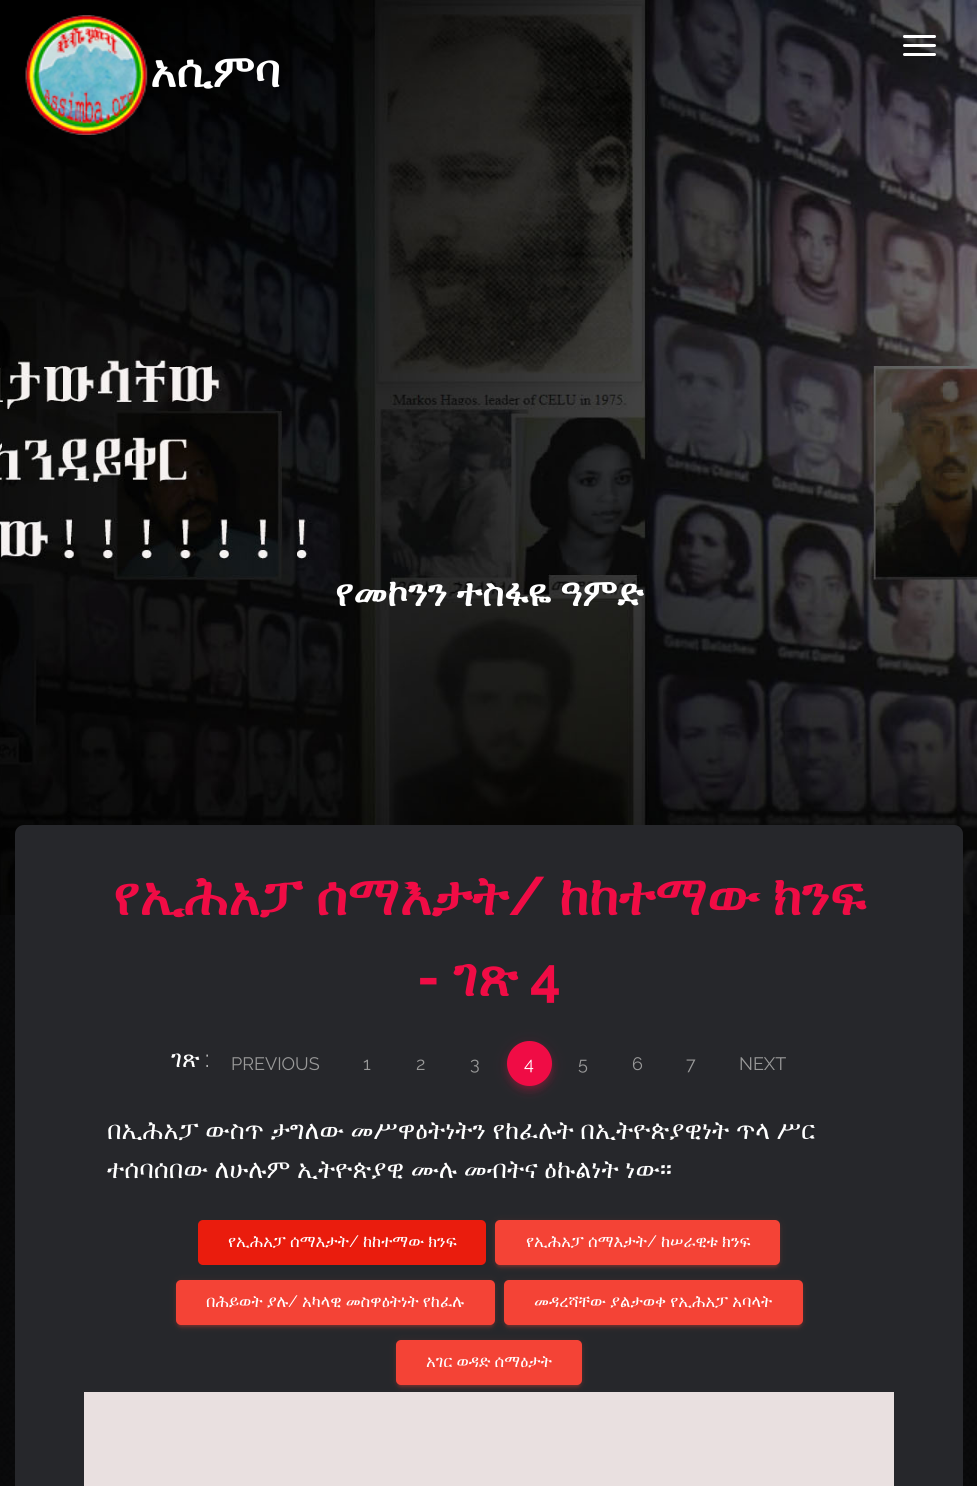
#include <cairo/cairo.h>
#include <math.h>
#include <stddef.h>

static cairo_t *cr;

static void use_color(int r, int g, int b) {
  cairo_set_source_rgb(cr, r / 255.0, g / 255.0, b / 255.0);
}

static void text(double x, double y, const char *s, const char *family, double size, int italic, int bold, int r, int g, int b) {
  cairo_select_font_face(cr, family, italic ? CAIRO_FONT_SLANT_ITALIC : CAIRO_FONT_SLANT_NORMAL,
    bold ? CAIRO_FONT_WEIGHT_BOLD : CAIRO_FONT_WEIGHT_NORMAL);
  cairo_set_font_size(cr, size);
  use_color(r, g, b);
  cairo_move_to(cr, x, y);
  cairo_show_text(cr, s);
}

static void spaced_text(double x, double y, const char *s, double letter, double word) {
  cairo_move_to(cr, x, y);
  while (*s) {
    char ch[5] = {0};
    int n = 0;
    do ch[n++] = *s++; while ((*s & 0xC0) == 0x80);
    cairo_show_text(cr, ch);
    cairo_rel_move_to(cr, letter + word * (*ch == ' '), 0);
  }
}

static void box(double x, double y, double w, double h, int r, int g, int b) {
  use_color(r, g, b);
  cairo_rectangle(cr, x, y, w, h);
  cairo_fill(cr);
}

static void round_rect(double x, double y, double w, double h, double r) {
  cairo_new_sub_path(cr);
  cairo_arc(cr, x + w - r, y + h - r, r, 0, M_PI / 2);
  cairo_arc(cr, x + r, y + h - r, r, M_PI / 2, M_PI);
  cairo_arc(cr, x + r, y + r, r, M_PI, 1.5 * M_PI);
  cairo_arc(cr, x + w - r, y + r, r, 1.5 * M_PI, 2 * M_PI);
  cairo_close_path(cr);
}

static void shadow(double x, double y, double w, double h, double r, double blur, double alpha) {
  cairo_push_group_with_content(cr, CAIRO_CONTENT_ALPHA);
  cairo_set_operator(cr, CAIRO_OPERATOR_SOURCE);
  for (int i = 15; i >= -15 && fmin(w, h) + blur * i / 3 > 0; i -= 2) {
    double e = blur * i / 6;
    cairo_set_source_rgba(cr, 0, 0, 0, alpha * erfc((i - 1) / 8.5) / 2);
    round_rect(x - e, y - e, w + 2 * e, h + 2 * e, fmax(0, fmin(r + e + blur * .6, fmin(w, h) / 2 + e)));
    cairo_fill(cr);
  }
  cairo_pattern_t *soft = cairo_pop_group(cr);
  cairo_mask(cr, soft);
  cairo_pattern_destroy(soft);
}

static void picture(const char *path, double x, double y, double w, double h) {
  cairo_surface_t *image = cairo_image_surface_create_from_png(path);
  cairo_save(cr);
  cairo_set_source_surface(cr, image, x, y);
  cairo_rectangle(cr, x, y, w, h);
  cairo_fill(cr);
  cairo_restore(cr);
  cairo_surface_destroy(image);
}

static void draw(void) {
  use_color(255, 255, 255);
  cairo_paint(cr);
  picture("img_01.png", 0, 915, 977, 571);
  picture("img_03.png", 0, 0, 977, 915);
  use_color(255, 255, 255);
  round_rect(903, 35, 33, 3, 1.5);
  cairo_fill(cr);
  round_rect(903, 44, 33, 3, 1.5);
  cairo_fill(cr);
  round_rect(903, 53, 33, 3, 1.5);
  cairo_fill(cr);
  picture("img_02.png", 25, 15, 123, 120);
  use_color(38, 39, 43);
  round_rect(15, 825, 948, 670, 9);
  cairo_fill(cr);
  use_color(240, 12, 69);
  shadow(509, 1046, 42, 42, 21, 3, 0.2);
  shadow(507, 1043, 45, 45, 22.5, 7.5, 0.12);
  shadow(507, 1047, 45, 45, 22.5, 4, 0.14);
  use_color(240, 12, 69);
  cairo_arc(cr, 529.5, 1063.5, 22.5, 0, 2 * M_PI);
  cairo_fill(cr);
  use_color(234, 28, 13);
  round_rect(198, 1220, 288, 45, 5);
  cairo_fill(cr);
  use_color(244, 67, 54);
  shadow(495, 1221, 285, 45, 5, 4, 0.12);
  shadow(498, 1227, 279, 39, 1.5, 1, 0.2);
  shadow(495, 1223, 285, 45, 5, 1.5, 0.14);
  use_color(244, 67, 54);
  round_rect(495, 1220, 285, 45, 5);
  cairo_fill(cr);
  use_color(244, 67, 54);
  shadow(176, 1281, 319, 45, 5, 4, 0.12);
  shadow(179, 1287, 313, 39, 1.5, 1, 0.2);
  shadow(176, 1283, 319, 45, 5, 1.5, 0.14);
  use_color(244, 67, 54);
  round_rect(176, 1280, 319, 45, 5);
  cairo_fill(cr);
  use_color(244, 67, 54);
  shadow(504, 1281, 299, 45, 5, 4, 0.12);
  shadow(507, 1287, 293, 39, 1.5, 1, 0.2);
  shadow(504, 1283, 299, 45, 5, 1.5, 0.14);
  use_color(244, 67, 54);
  round_rect(504, 1280, 299, 45, 5);
  cairo_fill(cr);
  use_color(244, 67, 54);
  shadow(396, 1341, 186, 45, 5, 4, 0.12);
  shadow(399, 1347, 180, 39, 1.5, 1, 0.2);
  shadow(396, 1343, 186, 45, 5, 1.5, 0.14);
  use_color(244, 67, 54);
  round_rect(396, 1340, 186, 45, 5);
  cairo_fill(cr);
  box(84, 1392, 810, 94, 233, 224, 224);
  text(150, 87, "አሲምባ", "FreeSerif", 45, 0, 1, 255, 255, 255);
  text(335, 606, "የመኮንን ተስፋዬ ዓምድ", "FreeSerif", 37.5, 0, 1, 255, 255, 255);
  text(113, 915, "የኢሕአፓ ሰማእታት", "FreeSerif", 54, 0, 1, 240, 12, 69);
  text(508, 915, "/", "Raleway", 54, 0, 1, 240, 12, 69);
  text(559, 915, "ከከተማው ክንፍ", "FreeSerif", 54, 0, 1, 240, 12, 69);
  text(417, 996, "-", "Raleway", 54, 0, 1, 240, 12, 69);
  text(453, 996, "ገጽ", "FreeSerif", 54, 0, 1, 240, 12, 69);
  text(530, 996, "4", "Raleway", 54, 0, 1, 240, 12, 69);
  text(171, 1067, "ገጽ", "FreeSerif", 24, 0, 0, 255, 255, 255);
  text(205, 1067, ":", "Raleway Light", 24, 0, 0, 255, 255, 255);
  text(231, 1070, "PREVIOUS", "Raleway", 18, 0, 0, 153, 153, 153);
  text(363, 1070, "1", "Raleway", 18, 0, 0, 153, 153, 153);
  text(416, 1070, "2", "Raleway", 18, 0, 0, 153, 153, 153);
  text(470, 1070, "3", "Raleway", 18, 0, 0, 153, 153, 153);
  text(524, 1070, "4", "Raleway", 18, 0, 0, 255, 255, 255);
  text(578, 1070, "5", "Raleway", 18, 0, 0, 153, 153, 153);
  text(632, 1070, "6", "Raleway", 18, 0, 0, 153, 153, 153);
  text(686, 1070, "7", "Raleway", 18, 0, 0, 153, 153, 153);
  text(739, 1070, "NEXT", "Raleway", 18, 0, 0, 153, 153, 153);
  cairo_select_font_face(cr, "FreeSerif", CAIRO_FONT_SLANT_NORMAL, CAIRO_FONT_WEIGHT_NORMAL);
  cairo_set_font_size(cr, 25.5);
  use_color(255, 255, 255);
  spaced_text(107, 1139, "በኢሕአፓ ውስጥ ታግለው መሥዋዕትነትን የከፈሉት በኢትዮጵያዊነት ጥላ ሥር", 0, 0.25);
  spaced_text(107, 1178, "ተሰባሰበው ለሁሉም ኢትዮጵያዊ ሙሉ መብትና ዕኩልነት ነው።", 0, 0.25);
  text(228, 1247, "የኢሕአፓ ሰማእታት", "FreeSerif", 16.5, 0, 0, 255, 255, 255);
  text(349, 1247, "/", "Raleway", 16.5, 0, 0, 255, 255, 255);
  text(363, 1247, "ከከተማው ክንፍ", "FreeSerif", 16.5, 0, 0, 255, 255, 255);
  text(526, 1247, "የኢሕአፓ ሰማእታት", "FreeSerif", 16.5, 0, 0, 255, 255, 255);
  text(647, 1247, "/", "Raleway", 16.5, 0, 0, 255, 255, 255);
  text(661, 1247, "ከሠራዊቱ ክንፍ", "FreeSerif", 16.5, 0, 0, 255, 255, 255);
  text(206, 1307, "በሕይወት ያሉ", "FreeSerif", 16.5, 0, 0, 255, 255, 255);
  text(288, 1307, "/", "Raleway", 16.5, 0, 0, 255, 255, 255);
  text(302, 1307, "አካላዊ መስዋዕትነት የከፈሉ", "FreeSerif", 16.5, 0, 0, 255, 255, 255);
  text(534, 1307, "መዳረሻቸው ያልታወቀ የኢሕአፓ አባላት", "FreeSerif", 16.5, 0, 0, 255, 255, 255);
  text(426, 1367, "አገር ወዳድ ሰማዕታት", "FreeSerif", 16.5, 0, 0, 255, 255, 255);
}

int main(void) {
  cairo_surface_t *surface = cairo_image_surface_create(CAIRO_FORMAT_RGB24, 977, 1486);
  cr = cairo_create(surface);
  cairo_font_options_t *options = cairo_font_options_create();
  cairo_font_options_set_hint_metrics(options, CAIRO_HINT_METRICS_OFF);
  cairo_font_options_set_hint_style(options, CAIRO_HINT_STYLE_NONE);
  cairo_set_font_options(cr, options);
  cairo_set_miter_limit(cr, 4);
  draw();
  cairo_surface_write_to_png(surface, "out.png");
  cairo_font_options_destroy(options);
  cairo_destroy(cr);
  cairo_surface_destroy(surface);
  return 0;
}
